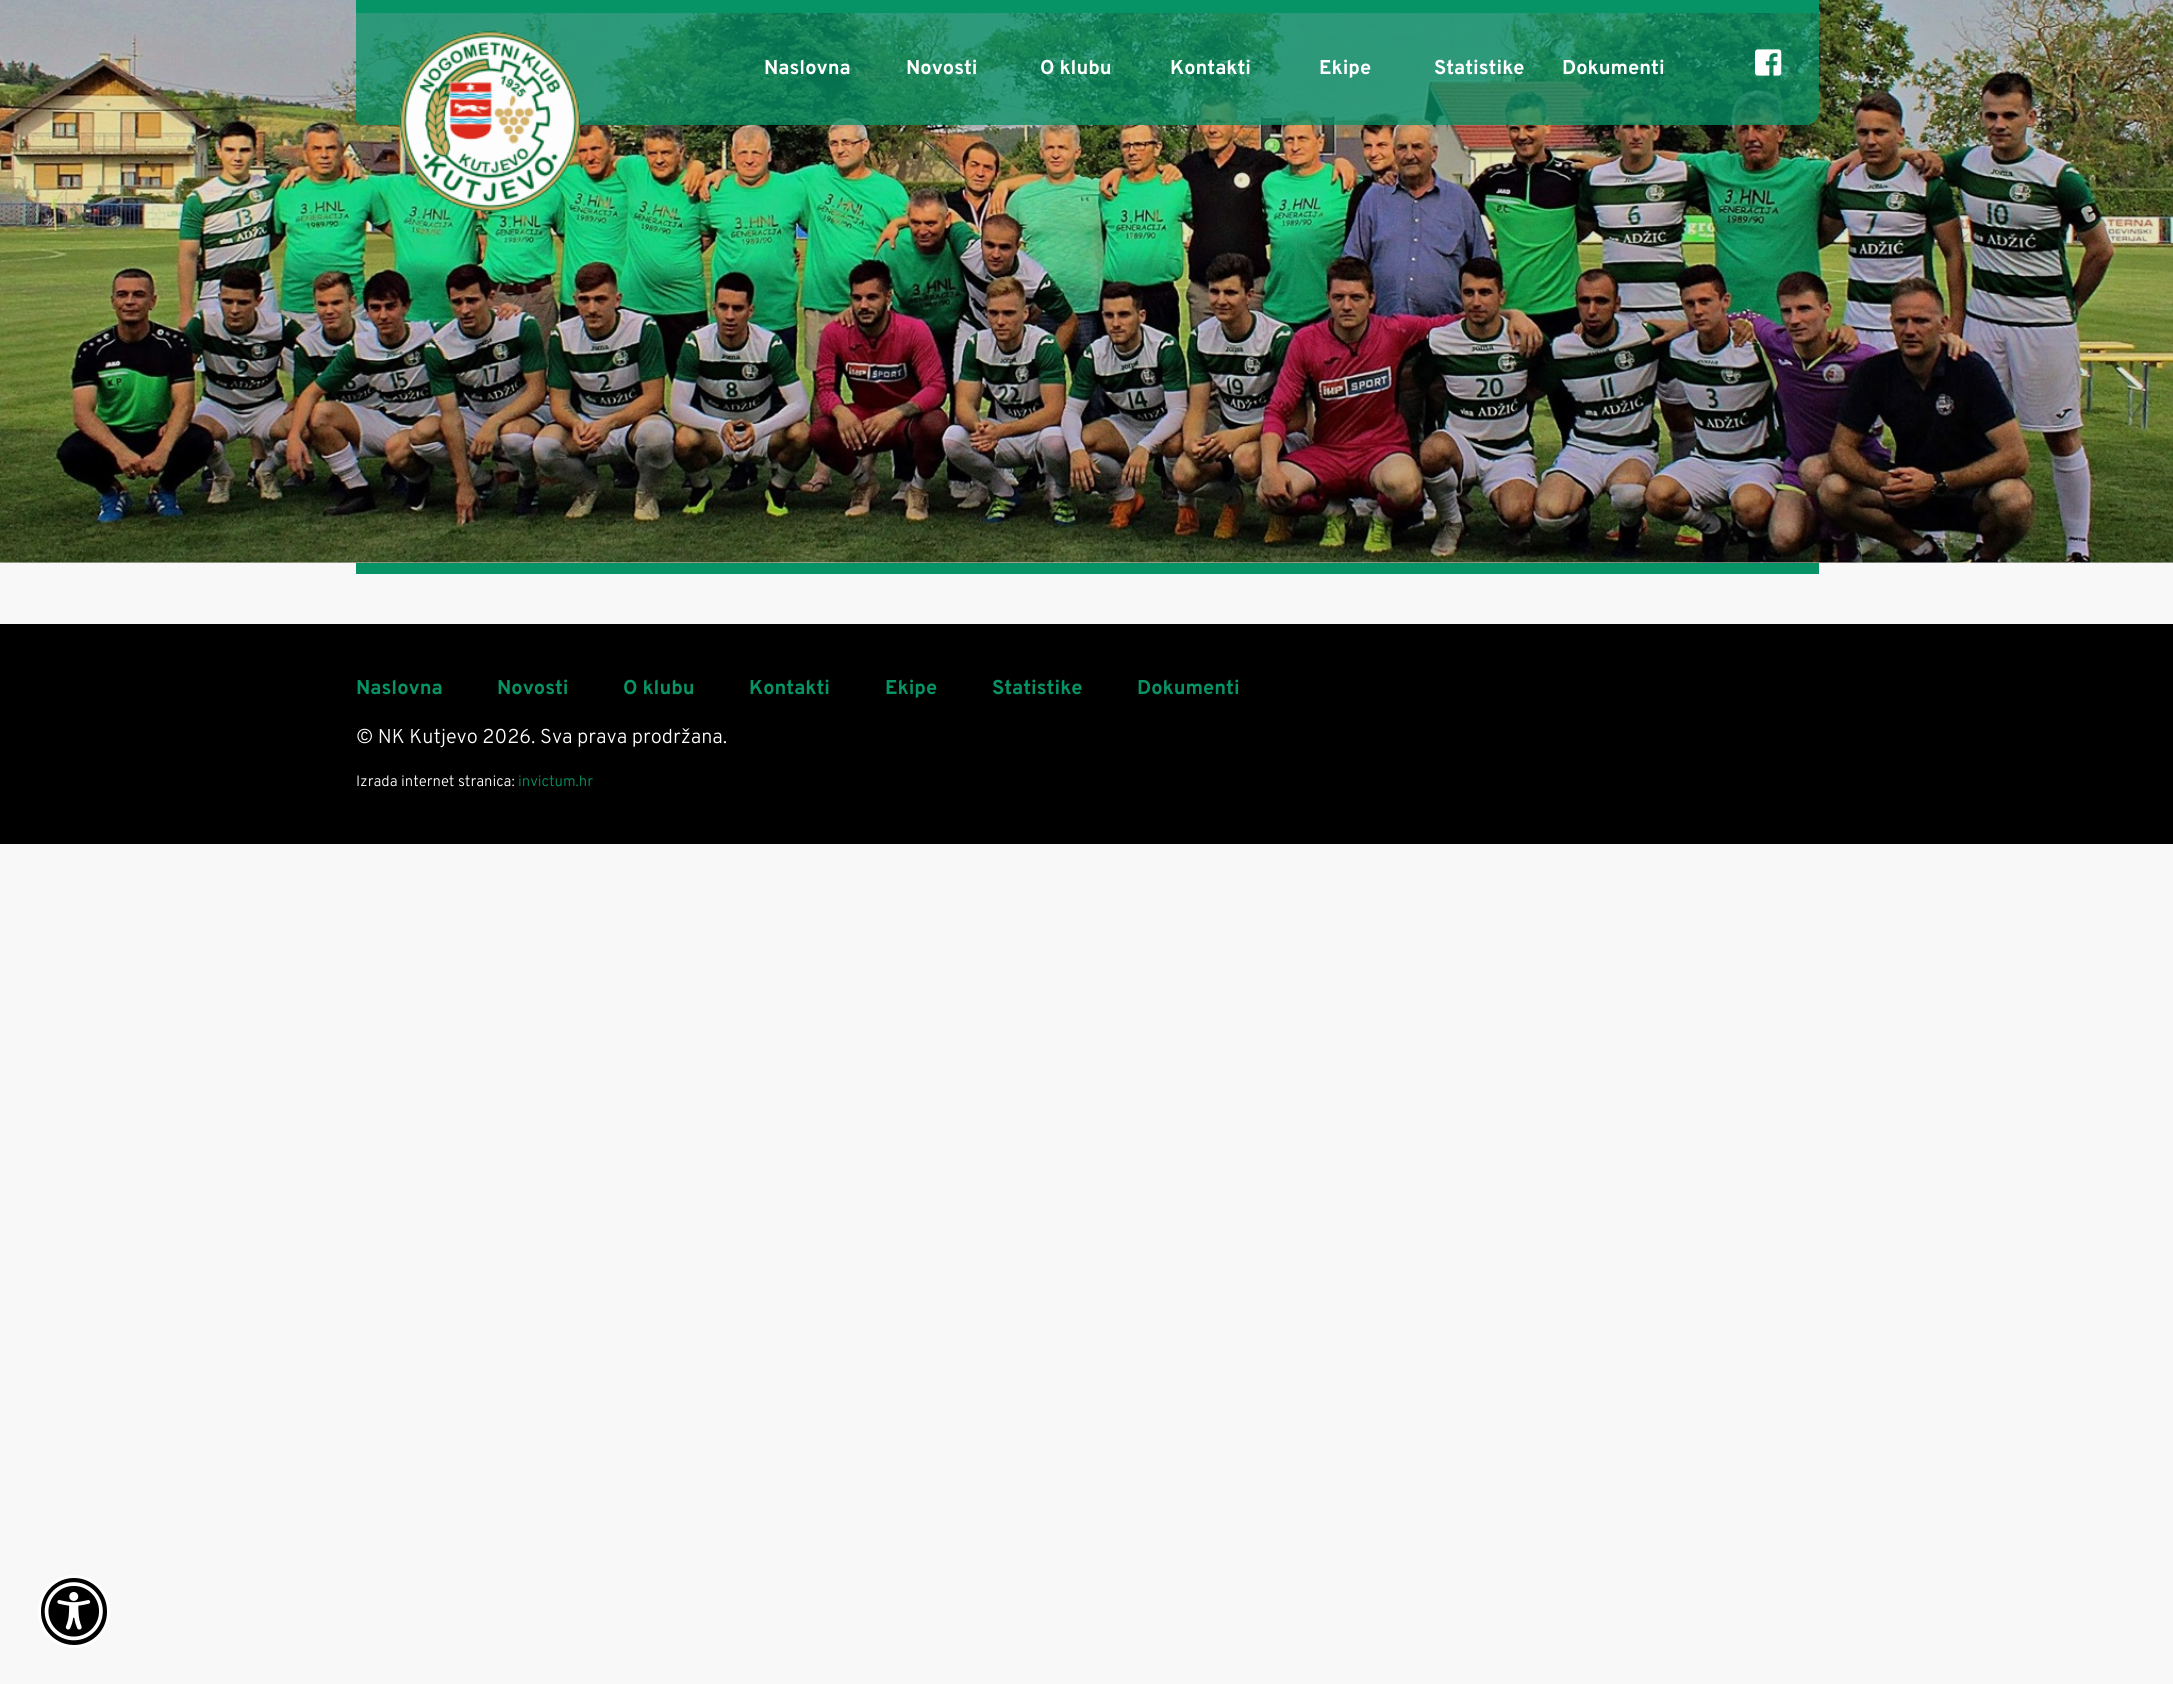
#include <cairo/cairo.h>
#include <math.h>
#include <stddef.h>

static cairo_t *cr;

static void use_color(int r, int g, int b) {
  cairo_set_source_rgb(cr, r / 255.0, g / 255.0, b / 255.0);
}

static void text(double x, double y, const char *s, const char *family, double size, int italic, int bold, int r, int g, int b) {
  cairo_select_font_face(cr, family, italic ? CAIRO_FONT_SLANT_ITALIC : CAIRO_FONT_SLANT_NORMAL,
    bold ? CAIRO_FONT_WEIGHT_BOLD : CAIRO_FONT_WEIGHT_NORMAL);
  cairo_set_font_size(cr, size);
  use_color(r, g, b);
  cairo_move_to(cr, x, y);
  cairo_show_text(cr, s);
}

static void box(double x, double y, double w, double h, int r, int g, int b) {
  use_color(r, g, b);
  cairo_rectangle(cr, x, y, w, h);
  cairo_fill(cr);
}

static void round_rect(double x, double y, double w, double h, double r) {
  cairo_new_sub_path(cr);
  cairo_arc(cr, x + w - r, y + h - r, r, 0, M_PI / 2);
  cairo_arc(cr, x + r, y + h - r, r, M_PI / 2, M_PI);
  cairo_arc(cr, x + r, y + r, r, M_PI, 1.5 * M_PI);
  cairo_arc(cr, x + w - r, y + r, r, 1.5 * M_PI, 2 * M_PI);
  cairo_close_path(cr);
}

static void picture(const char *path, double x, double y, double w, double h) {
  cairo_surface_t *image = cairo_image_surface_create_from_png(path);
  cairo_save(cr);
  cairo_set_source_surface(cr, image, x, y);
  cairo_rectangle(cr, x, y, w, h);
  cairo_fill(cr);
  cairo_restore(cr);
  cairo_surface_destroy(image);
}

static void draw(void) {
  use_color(248, 248, 248);
  cairo_paint(cr);
  box(0, 562, 2173, 1, 223, 223, 223);
  picture("img_01.png", 0, 0, 2173, 563);
  cairo_set_source_rgba(cr, 0.024, 0.576, 0.404, 0.75);
  cairo_new_path(cr);
  cairo_move_to(cr, 356, 0);
  cairo_line_to(cr, 1819, 0);
  cairo_line_to(cr, 1819, 112);
  cairo_curve_to(cr, 1819, 119, 1813, 125, 1806, 125);
  cairo_line_to(cr, 362, 125);
  cairo_curve_to(cr, 358.5, 125, 356, 122.5, 356, 119);
  cairo_close_path(cr);
  cairo_fill(cr);
  box(356, 0, 1463, 13, 6, 147, 102);
  picture("img_02.png", 400, 31, 180, 181);
  picture("img_03.png", 1755, 49, 27, 27);
  box(356, 563, 1463, 11, 8, 147, 102);
  box(0, 624, 2173, 220, 0, 0, 0);
  round_rect(39.5, 1576.5, 69, 70, 34.5);
  cairo_fill_preserve(cr);
  use_color(255, 255, 255);
  cairo_set_line_width(cr, 3);
  cairo_stroke(cr);
  picture("img_04.png", 44, 1582, 59, 59);
  text(764, 74, "Naslovna", "Overpass", 20, 0, 1, 255, 255, 255);
  text(906, 74, "Novosti", "Overpass", 20, 0, 1, 255, 255, 255);
  text(1040, 74, "O klubu", "Overpass", 20, 0, 1, 255, 255, 255);
  text(1170, 74, "Kontakti", "Overpass", 20, 0, 1, 255, 255, 255);
  text(1319, 74, "Ekipe", "Overpass", 20, 0, 1, 255, 255, 255);
  text(1434, 74, "Statistike", "Overpass", 20, 0, 1, 255, 255, 255);
  text(1562, 74, "Dokumenti", "Overpass", 20, 0, 1, 255, 255, 255);
  text(356, 694, "Naslovna", "Overpass", 20, 0, 1, 6, 147, 102);
  text(497, 694, "Novosti", "Overpass", 20, 0, 1, 6, 147, 102);
  text(623, 694, "O klubu", "Overpass", 20, 0, 1, 6, 147, 102);
  text(749, 694, "Kontakti", "Overpass", 20, 0, 1, 6, 147, 102);
  text(885, 694, "Ekipe", "Overpass", 20, 0, 1, 6, 147, 102);
  text(992, 694, "Statistike", "Overpass", 20, 0, 1, 6, 147, 102);
  text(1137, 694, "Dokumenti", "Overpass", 20, 0, 1, 6, 147, 102);
  text(356, 743, "© NK Kutjevo 2026. Sva prava prodržana.", "Overpass Light", 20, 0, 0, 255, 255, 255);
  text(356, 786, "Izrada internet stranica:", "Overpass Light", 15, 0, 0, 255, 255, 255);
  text(518, 786, "invictum.hr", "Overpass Light", 15, 0, 0, 6, 147, 102);
}

int main(void) {
  cairo_surface_t *surface = cairo_image_surface_create(CAIRO_FORMAT_RGB24, 2173, 1684);
  cr = cairo_create(surface);
  cairo_font_options_t *options = cairo_font_options_create();
  cairo_font_options_set_hint_metrics(options, CAIRO_HINT_METRICS_OFF);
  cairo_font_options_set_hint_style(options, CAIRO_HINT_STYLE_NONE);
  cairo_set_font_options(cr, options);
  cairo_set_miter_limit(cr, 4);
  draw();
  cairo_surface_write_to_png(surface, "out.png");
  cairo_font_options_destroy(options);
  cairo_destroy(cr);
  cairo_surface_destroy(surface);
  return 0;
}
